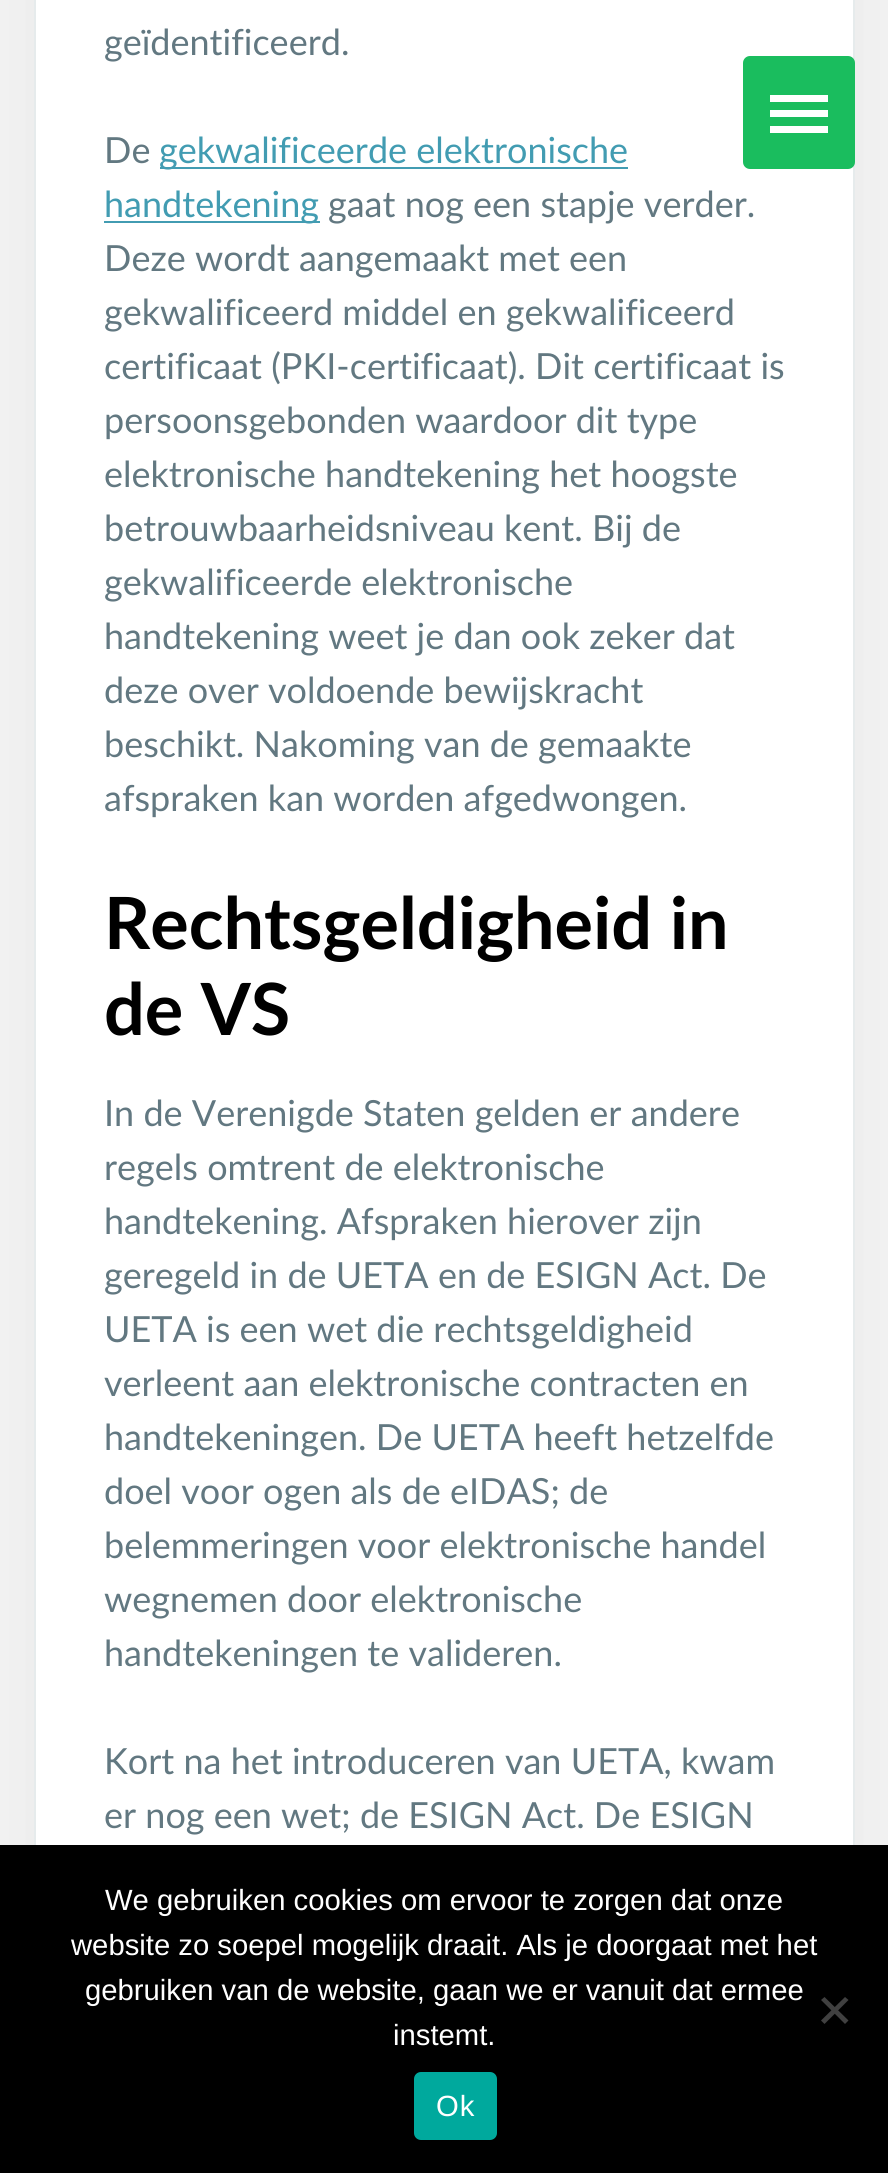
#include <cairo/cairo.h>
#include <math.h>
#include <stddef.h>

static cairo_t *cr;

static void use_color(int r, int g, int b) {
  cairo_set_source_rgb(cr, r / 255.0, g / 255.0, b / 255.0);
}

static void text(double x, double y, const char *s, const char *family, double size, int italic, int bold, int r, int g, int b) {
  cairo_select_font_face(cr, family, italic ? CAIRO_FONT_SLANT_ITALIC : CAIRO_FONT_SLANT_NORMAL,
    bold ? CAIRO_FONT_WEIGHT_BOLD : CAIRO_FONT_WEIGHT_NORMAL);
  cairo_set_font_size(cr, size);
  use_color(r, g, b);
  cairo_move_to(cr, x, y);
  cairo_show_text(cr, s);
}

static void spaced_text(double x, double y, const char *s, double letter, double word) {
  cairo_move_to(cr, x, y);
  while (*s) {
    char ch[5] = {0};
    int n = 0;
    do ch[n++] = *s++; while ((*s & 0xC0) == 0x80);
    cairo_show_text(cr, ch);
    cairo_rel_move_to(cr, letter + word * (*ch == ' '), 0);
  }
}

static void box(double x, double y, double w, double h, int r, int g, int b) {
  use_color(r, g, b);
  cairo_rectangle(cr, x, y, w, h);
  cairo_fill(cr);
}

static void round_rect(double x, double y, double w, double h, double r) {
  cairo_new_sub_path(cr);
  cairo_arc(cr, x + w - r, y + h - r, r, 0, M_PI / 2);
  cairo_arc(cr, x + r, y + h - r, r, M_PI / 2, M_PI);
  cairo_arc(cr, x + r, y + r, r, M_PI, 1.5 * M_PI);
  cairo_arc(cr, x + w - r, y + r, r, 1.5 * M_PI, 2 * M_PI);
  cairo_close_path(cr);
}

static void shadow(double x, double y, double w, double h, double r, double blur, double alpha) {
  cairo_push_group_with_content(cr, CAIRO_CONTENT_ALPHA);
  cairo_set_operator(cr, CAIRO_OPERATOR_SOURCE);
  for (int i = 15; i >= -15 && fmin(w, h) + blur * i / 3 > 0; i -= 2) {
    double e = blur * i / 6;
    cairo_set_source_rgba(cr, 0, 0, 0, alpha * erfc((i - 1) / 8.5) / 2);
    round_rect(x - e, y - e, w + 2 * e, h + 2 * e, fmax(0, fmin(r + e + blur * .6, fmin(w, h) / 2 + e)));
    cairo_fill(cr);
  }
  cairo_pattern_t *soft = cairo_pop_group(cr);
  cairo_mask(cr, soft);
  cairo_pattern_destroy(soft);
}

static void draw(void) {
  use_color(244, 244, 244);
  cairo_paint(cr);
  use_color(0, 0, 0);
  shadow(34, -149, 821, 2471, 0, 49.5, 0.05);
  box(36, 0, 817, 1845, 255, 255, 255);
  cairo_rectangle(cr, 35, -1, 819, 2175);
  use_color(230, 235, 236);
  cairo_stroke(cr);
  box(160, 167, 468, 2, 66, 156, 178);
  box(104, 221, 216, 2, 66, 156, 178);
  use_color(26, 189, 94);
  round_rect(743, 56, 112, 113, 7);
  cairo_fill(cr);
  box(770, 110, 58, 7, 255, 255, 255);
  box(770, 95, 58, 7, 255, 255, 255);
  box(770, 126, 58, 7, 255, 255, 255);
  box(0, 1845, 888, 328, 0, 0, 0);
  use_color(64, 64, 64);
  cairo_new_path(cr);
  cairo_move_to(cr, 845, 1997);
  cairo_line_to(cr, 848.5, 2000);
  cairo_line_to(cr, 824.5, 2024);
  cairo_line_to(cr, 821, 2020.5);
  cairo_close_path(cr);
  cairo_fill(cr);
  cairo_new_path(cr);
  cairo_move_to(cr, 821, 2000);
  cairo_line_to(cr, 824.5, 1997);
  cairo_line_to(cr, 848.5, 2020.5);
  cairo_line_to(cr, 845, 2024);
  cairo_close_path(cr);
  cairo_fill(cr);
  use_color(0, 169, 157);
  round_rect(414, 2072, 83, 68, 7);
  cairo_fill(cr);
  text(104, 55, "geïdentificeerd.", "Lato", 36, 0, 0, 98, 120, 129);
  text(104, 163, "De", "Lato", 36, 0, 0, 98, 120, 129);
  text(159, 163, "gekwalificeerde elektronische", "Lato", 36, 0, 0, 66, 156, 178);
  text(104, 217, "handtekening", "Lato", 36, 0, 0, 66, 156, 178);
  text(328, 217, "gaat nog een stapje verder.", "Lato", 36, 0, 0, 98, 120, 129);
  text(104, 271, "Deze wordt aangemaakt met een", "Lato", 36, 0, 0, 98, 120, 129);
  text(104, 325, "gekwalificeerd middel en gekwalificeerd", "Lato", 36, 0, 0, 98, 120, 129);
  text(104, 379, "certificaat (PKI-certificaat). Dit certificaat is", "Lato", 36, 0, 0, 98, 120, 129);
  text(104, 433, "persoonsgebonden waardoor dit type", "Lato", 36, 0, 0, 98, 120, 129);
  text(104, 487, "elektronische handtekening het hoogste", "Lato", 36, 0, 0, 98, 120, 129);
  text(104, 541, "betrouwbaarheidsniveau kent. Bij de", "Lato", 36, 0, 0, 98, 120, 129);
  text(104, 595, "gekwalificeerde elektronische", "Lato", 36, 0, 0, 98, 120, 129);
  text(104, 649, "handtekening weet je dan ook zeker dat", "Lato", 36, 0, 0, 98, 120, 129);
  text(104, 703, "deze over voldoende bewijskracht", "Lato", 36, 0, 0, 98, 120, 129);
  text(104, 757, "beschikt. Nakoming van de gemaakte", "Lato", 36, 0, 0, 98, 120, 129);
  text(104, 811, "afspraken kan worden afgedwongen.", "Lato", 36, 0, 0, 98, 120, 129);
  text(104, 949, "Rechtsgeldigheid in", "Lato", 72, 0, 1, 0, 0, 0);
  text(104, 1035, "de VS", "Lato", 72, 0, 1, 0, 0, 0);
  text(104, 1126, "In de Verenigde Staten gelden er andere", "Lato", 36, 0, 0, 98, 120, 129);
  text(104, 1180, "regels omtrent de elektronische", "Lato", 36, 0, 0, 98, 120, 129);
  text(104, 1234, "handtekening. Afspraken hierover zijn", "Lato", 36, 0, 0, 98, 120, 129);
  text(104, 1288, "geregeld in de UETA en de ESIGN Act. De", "Lato", 36, 0, 0, 98, 120, 129);
  text(104, 1342, "UETA is een wet die rechtsgeldigheid", "Lato", 36, 0, 0, 98, 120, 129);
  text(104, 1396, "verleent aan elektronische contracten en", "Lato", 36, 0, 0, 98, 120, 129);
  text(104, 1450, "handtekeningen. De UETA heeft hetzelfde", "Lato", 36, 0, 0, 98, 120, 129);
  text(104, 1504, "doel voor ogen als de eIDAS; de", "Lato", 36, 0, 0, 98, 120, 129);
  text(104, 1558, "belemmeringen voor elektronische handel", "Lato", 36, 0, 0, 98, 120, 129);
  text(104, 1612, "wegnemen door elektronische", "Lato", 36, 0, 0, 98, 120, 129);
  text(104, 1666, "handtekeningen te valideren.", "Lato", 36, 0, 0, 98, 120, 129);
  text(104, 1774, "Kort na het introduceren van UETA, kwam", "Lato", 36, 0, 0, 98, 120, 129);
  text(104, 1828, "er nog een wet; de ESIGN Act. De ESIGN", "Lato", 36, 0, 0, 98, 120, 129);
  text(105, 1910, "We gebruiken cookies om ervoor te zorgen dat onze", "Liberation Sans", 29.25, 0, 0, 255, 255, 255);
  text(71, 1955, "website zo soepel mogelijk draait. Als je doorgaat met het", "Liberation Sans", 29.25, 0, 0, 255, 255, 255);
  text(85, 2000, "gebruiken van de website, gaan we er vanuit dat ermee", "Liberation Sans", 29.25, 0, 0, 255, 255, 255);
  text(393, 2045, "instemt.", "Liberation Sans", 29.25, 0, 0, 255, 255, 255);
  spaced_text(436, 2116, "Ok", 1, 0);
}

int main(void) {
  cairo_surface_t *surface = cairo_image_surface_create(CAIRO_FORMAT_RGB24, 888, 2173);
  cr = cairo_create(surface);
  cairo_font_options_t *options = cairo_font_options_create();
  cairo_font_options_set_hint_metrics(options, CAIRO_HINT_METRICS_OFF);
  cairo_font_options_set_hint_style(options, CAIRO_HINT_STYLE_NONE);
  cairo_set_font_options(cr, options);
  cairo_set_miter_limit(cr, 4);
  draw();
  cairo_surface_write_to_png(surface, "out.png");
  cairo_font_options_destroy(options);
  cairo_destroy(cr);
  cairo_surface_destroy(surface);
  return 0;
}
